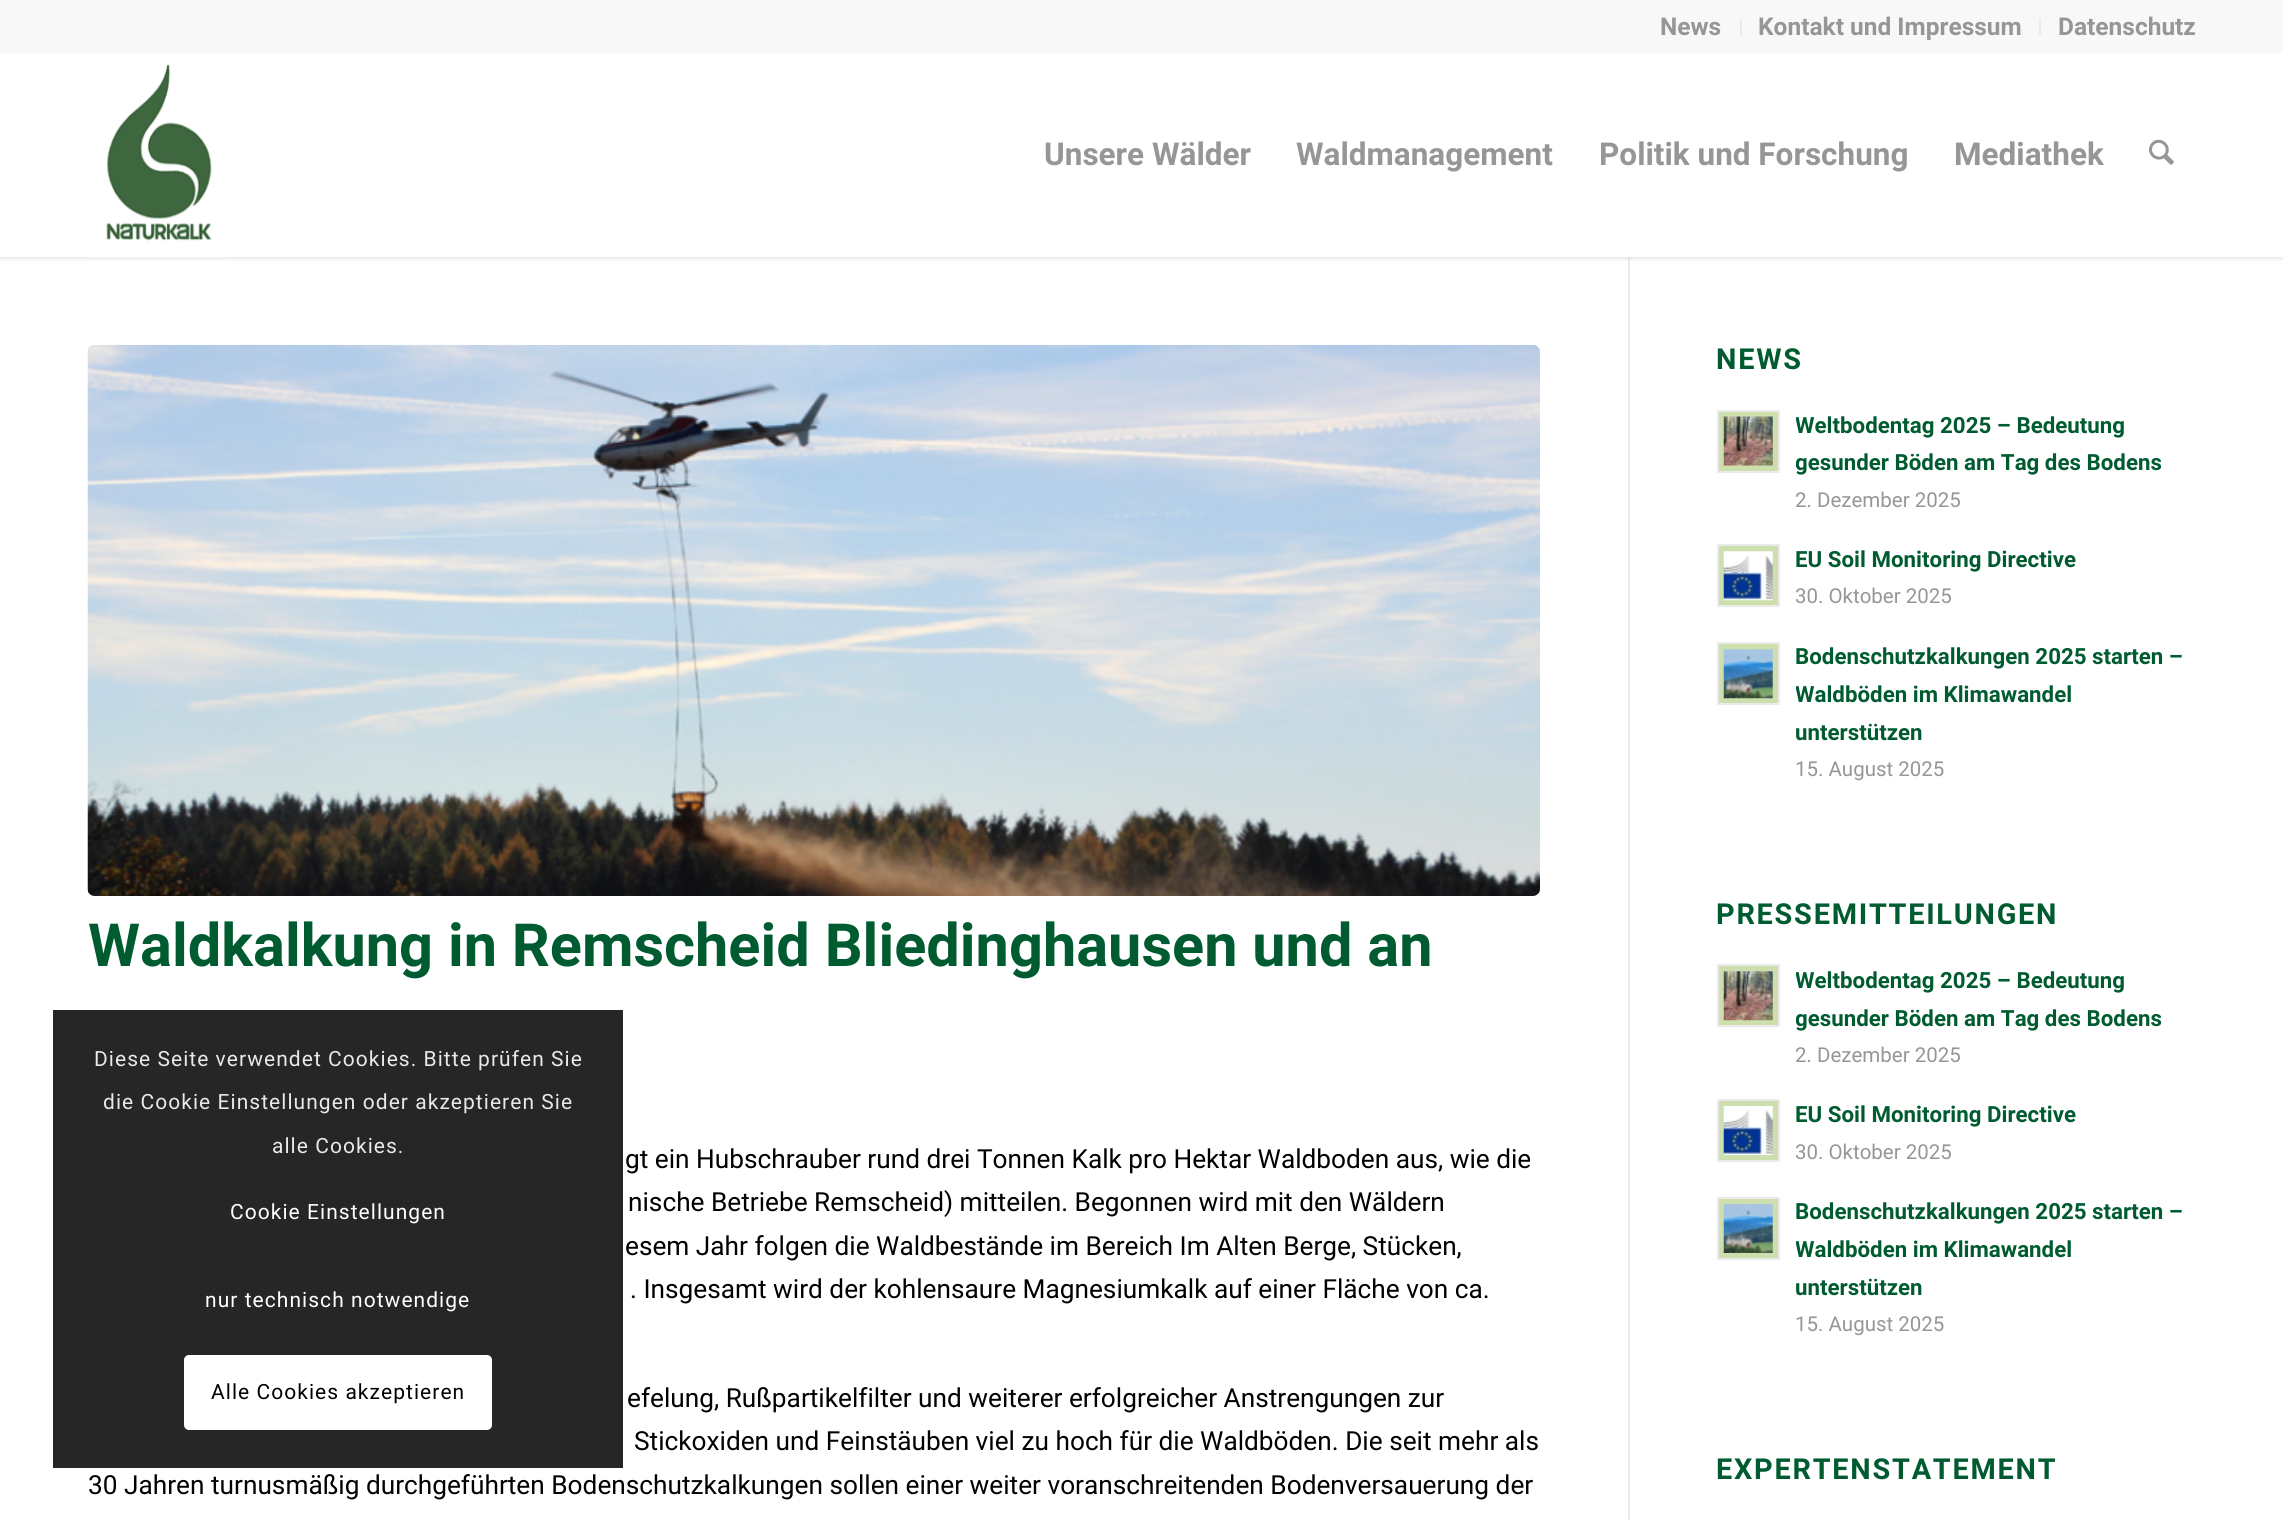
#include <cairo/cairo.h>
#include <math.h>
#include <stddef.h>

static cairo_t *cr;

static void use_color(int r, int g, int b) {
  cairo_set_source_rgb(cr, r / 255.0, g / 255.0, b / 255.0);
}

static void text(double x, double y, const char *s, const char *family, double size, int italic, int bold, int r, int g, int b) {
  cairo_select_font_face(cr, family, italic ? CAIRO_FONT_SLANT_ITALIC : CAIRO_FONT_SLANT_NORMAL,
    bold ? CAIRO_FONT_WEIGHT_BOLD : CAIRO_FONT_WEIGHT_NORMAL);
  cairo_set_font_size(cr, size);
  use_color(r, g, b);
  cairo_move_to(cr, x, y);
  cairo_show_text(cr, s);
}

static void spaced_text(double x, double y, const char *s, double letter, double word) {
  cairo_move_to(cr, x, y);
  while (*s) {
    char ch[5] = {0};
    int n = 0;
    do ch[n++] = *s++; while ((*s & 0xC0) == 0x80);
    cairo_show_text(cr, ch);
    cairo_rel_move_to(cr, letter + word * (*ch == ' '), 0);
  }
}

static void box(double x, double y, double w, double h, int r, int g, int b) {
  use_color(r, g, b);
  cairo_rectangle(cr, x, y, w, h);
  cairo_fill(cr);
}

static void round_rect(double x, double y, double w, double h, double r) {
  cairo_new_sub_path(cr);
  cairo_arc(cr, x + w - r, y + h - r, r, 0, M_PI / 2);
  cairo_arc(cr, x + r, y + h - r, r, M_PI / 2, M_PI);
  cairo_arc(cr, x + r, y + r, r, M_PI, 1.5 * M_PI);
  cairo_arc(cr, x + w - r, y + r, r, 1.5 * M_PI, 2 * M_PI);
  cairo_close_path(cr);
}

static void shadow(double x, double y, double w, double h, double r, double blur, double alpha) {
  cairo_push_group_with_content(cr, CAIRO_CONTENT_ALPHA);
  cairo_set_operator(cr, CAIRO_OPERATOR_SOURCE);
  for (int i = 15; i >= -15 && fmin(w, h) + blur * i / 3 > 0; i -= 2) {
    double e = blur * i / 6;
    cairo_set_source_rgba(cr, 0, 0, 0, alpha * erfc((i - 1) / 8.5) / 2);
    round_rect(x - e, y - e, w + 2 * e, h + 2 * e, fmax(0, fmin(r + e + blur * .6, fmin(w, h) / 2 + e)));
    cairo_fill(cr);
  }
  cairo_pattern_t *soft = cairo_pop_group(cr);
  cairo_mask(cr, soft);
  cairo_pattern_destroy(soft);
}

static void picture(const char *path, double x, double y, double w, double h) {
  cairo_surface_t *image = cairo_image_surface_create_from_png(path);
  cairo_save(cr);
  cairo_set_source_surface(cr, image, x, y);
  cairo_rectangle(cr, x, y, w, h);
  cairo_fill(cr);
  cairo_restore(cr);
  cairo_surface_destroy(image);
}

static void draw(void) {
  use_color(255, 255, 255);
  cairo_paint(cr);
  box(1628, 257, 2, 1263, 235, 235, 235);
  cairo_save(cr);
  cairo_rectangle(cr, 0, 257, 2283, 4);
  cairo_clip(cr);
  use_color(0, 0, 0);
  shadow(-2, -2, 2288, 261, 0, 2, 0.1);
  cairo_restore(cr);
  box(0, 0, 2283, 53, 248, 248, 248);
  box(1740, 18, 2, 17, 235, 235, 235);
  box(2039, 18, 2, 17, 235, 235, 235);
  picture("img_01.png", 88, 64, 139, 194);
  picture("img_02.png", 2149, 139, 25, 26);
  picture("img_03.png", 87, 344, 1453, 552);
  use_color(206, 223, 174);
  cairo_rectangle(cr, 1718, 411, 61, 61);
  cairo_fill_preserve(cr);
  use_color(235, 235, 235);
  cairo_stroke(cr);
  picture("img_04.png", 1723, 416, 50, 50);
  use_color(206, 223, 174);
  cairo_rectangle(cr, 1718, 545, 61, 61);
  cairo_fill_preserve(cr);
  use_color(235, 235, 235);
  cairo_stroke(cr);
  picture("img_05.png", 1723, 551, 50, 50);
  use_color(206, 223, 174);
  cairo_rectangle(cr, 1718, 643, 61, 61);
  cairo_fill_preserve(cr);
  use_color(235, 235, 235);
  cairo_stroke(cr);
  picture("img_06.png", 1723, 649, 50, 50);
  use_color(206, 223, 174);
  cairo_rectangle(cr, 1718, 965, 61, 61);
  cairo_fill_preserve(cr);
  use_color(235, 235, 235);
  cairo_stroke(cr);
  picture("img_07.png", 1723, 971, 50, 50);
  use_color(206, 223, 174);
  cairo_rectangle(cr, 1718, 1100, 61, 61);
  cairo_fill_preserve(cr);
  use_color(235, 235, 235);
  cairo_stroke(cr);
  picture("img_08.png", 1723, 1106, 50, 49);
  use_color(206, 223, 174);
  cairo_rectangle(cr, 1718, 1198, 61, 61);
  cairo_fill_preserve(cr);
  use_color(235, 235, 235);
  cairo_stroke(cr);
  picture("img_09.png", 1723, 1204, 50, 49);
  cairo_set_source_rgba(cr, 0, 0, 0, 0.85);
  cairo_rectangle(cr, 53, 1010, 570, 458);
  cairo_fill(cr);
  use_color(255, 255, 255);
  round_rect(184, 1355, 308, 75, 5);
  cairo_fill(cr);
  text(1660, 35, "News", "Roboto", 24.5, 0, 1, 150, 150, 150);
  text(1758, 35, "Kontakt und Impressum", "Roboto", 24.5, 0, 1, 150, 150, 150);
  text(2058, 35, "Datenschutz", "Roboto", 24.5, 0, 1, 150, 150, 150);
  text(1044, 165, "Unsere Wälder", "Roboto", 31.5, 0, 1, 150, 150, 150);
  text(1296, 165, "Waldmanagement", "Roboto", 31.5, 0, 1, 150, 150, 150);
  text(1599, 165, "Politik und Forschung", "Roboto", 31.5, 0, 1, 150, 150, 150);
  text(1954, 165, "Mediathek", "Roboto", 31.5, 0, 1, 150, 150, 150);
  text(88, 966, "Waldkalkung in Remscheid Bliedinghausen und an", "Roboto", 59.5, 0, 1, 0, 92, 48);
  text(625, 1168, "gt ein Hubschrauber rund drei Tonnen Kalk pro Hektar Waldboden aus, wie die", "Roboto", 26.25, 0, 0, 0, 0, 0);
  text(628, 1211, "nische Betriebe Remscheid) mitteilen. Begonnen wird mit den Wäldern", "Roboto", 26.25, 0, 0, 0, 0, 0);
  text(625, 1255, "esem Jahr folgen die Waldbestände im Bereich Im Alten Berge, Stücken,", "Roboto", 26.25, 0, 0, 0, 0, 0);
  text(630, 1298, ". Insgesamt wird der kohlensaure Magnesiumkalk auf einer Fläche von ca.", "Roboto", 26.25, 0, 0, 0, 0, 0);
  text(627, 1407, "efelung, Rußpartikelfilter und weiterer erfolgreicher Anstrengungen zur", "Roboto", 26.25, 0, 0, 0, 0, 0);
  text(634, 1450, "Stickoxiden und Feinstäuben viel zu hoch für die Waldböden. Die seit mehr als", "Roboto", 26.25, 0, 0, 0, 0, 0);
  text(88, 1494, "30 Jahren turnusmäßig durchgeführten Bodenschutzkalkungen sollen einer weiter voranschreitenden Bodenversauerung der", "Roboto", 26.25, 0, 0, 0, 0, 0);
  cairo_select_font_face(cr, "Roboto", CAIRO_FONT_SLANT_NORMAL, CAIRO_FONT_WEIGHT_BOLD);
  cairo_set_font_size(cr, 28.9);
  use_color(0, 92, 48);
  spaced_text(1716, 369, "NEWS", 1.75, 0);
  cairo_save(cr);
  cairo_rectangle(cr, 1796, 406, 400, 114);
  cairo_clip(cr);
  text(1795, 433, "Weltbodentag 2025 – Bedeutung", "Roboto", 22.3, 0, 1, 0, 92, 48);
  text(1795, 470, "gesunder Böden am Tag des Bodens", "Roboto", 22.3, 0, 1, 0, 92, 48);
  cairo_restore(cr);
  text(1795, 507, "2. Dezember 2025", "Roboto", 20.5, 0, 0, 150, 150, 150);
  text(1795, 567, "EU Soil Monitoring Directive", "Roboto", 22.3, 0, 1, 0, 92, 48);
  text(1795, 603, "30. Oktober 2025", "Roboto", 20.5, 0, 0, 150, 150, 150);
  text(1795, 664, "Bodenschutzkalkungen 2025 starten –", "Roboto", 22.3, 0, 1, 0, 92, 48);
  cairo_save(cr);
  cairo_rectangle(cr, 1796, 639, 400, 150);
  cairo_clip(cr);
  text(1795, 702, "Waldböden im Klimawandel", "Roboto", 22.3, 0, 1, 0, 92, 48);
  cairo_restore(cr);
  text(1795, 740, "unterstützen", "Roboto", 22.3, 0, 1, 0, 92, 48);
  text(1795, 776, "15. August 2025", "Roboto", 20.5, 0, 0, 150, 150, 150);
  cairo_select_font_face(cr, "Roboto", CAIRO_FONT_SLANT_NORMAL, CAIRO_FONT_WEIGHT_BOLD);
  cairo_set_font_size(cr, 28.9);
  use_color(0, 92, 48);
  spaced_text(1716, 924, "PRESSEMITTEILUNGEN", 1.75, 0);
  cairo_save(cr);
  cairo_rectangle(cr, 1796, 961, 400, 114);
  cairo_clip(cr);
  text(1795, 988, "Weltbodentag 2025 – Bedeutung", "Roboto", 22.3, 0, 1, 0, 92, 48);
  text(1795, 1026, "gesunder Böden am Tag des Bodens", "Roboto", 22.3, 0, 1, 0, 92, 48);
  cairo_restore(cr);
  text(1795, 1062, "2. Dezember 2025", "Roboto", 20.5, 0, 0, 150, 150, 150);
  text(1795, 1122, "EU Soil Monitoring Directive", "Roboto", 22.3, 0, 1, 0, 92, 48);
  text(1795, 1159, "30. Oktober 2025", "Roboto", 20.5, 0, 0, 150, 150, 150);
  text(1795, 1219, "Bodenschutzkalkungen 2025 starten –", "Roboto", 22.3, 0, 1, 0, 92, 48);
  cairo_save(cr);
  cairo_rectangle(cr, 1796, 1194, 400, 150);
  cairo_clip(cr);
  text(1795, 1257, "Waldböden im Klimawandel", "Roboto", 22.3, 0, 1, 0, 92, 48);
  cairo_restore(cr);
  text(1795, 1295, "unterstützen", "Roboto", 22.3, 0, 1, 0, 92, 48);
  text(1795, 1331, "15. August 2025", "Roboto", 20.5, 0, 0, 150, 150, 150);
  cairo_select_font_face(cr, "Roboto", CAIRO_FONT_SLANT_NORMAL, CAIRO_FONT_WEIGHT_BOLD);
  cairo_set_font_size(cr, 28.9);
  use_color(0, 92, 48);
  spaced_text(1716, 1479, "EXPERTENSTATEMENT", 1.75, 0);
  cairo_select_font_face(cr, "Roboto", CAIRO_FONT_SLANT_NORMAL, CAIRO_FONT_WEIGHT_NORMAL);
  cairo_set_font_size(cr, 21);
  use_color(233, 233, 233);
  spaced_text(94, 1066, "Diese Seite verwendet Cookies. Bitte prüfen Sie", 1.05, 0);
  spaced_text(103, 1109, "die Cookie Einstellungen oder akzeptieren Sie", 1.05, 0);
  spaced_text(272, 1153, "alle Cookies.", 1.05, 0);
  use_color(255, 255, 255);
  spaced_text(230, 1219, "Cookie Einstellungen", 1.05, 0);
  spaced_text(205, 1307, "nur technisch notwendige", 1.05, 0);
  use_color(0, 0, 0);
  spaced_text(211, 1399, "Alle Cookies akzeptieren", 1.05, 0);
}

int main(void) {
  cairo_surface_t *surface = cairo_image_surface_create(CAIRO_FORMAT_RGB24, 2283, 1520);
  cr = cairo_create(surface);
  cairo_font_options_t *options = cairo_font_options_create();
  cairo_font_options_set_hint_metrics(options, CAIRO_HINT_METRICS_OFF);
  cairo_font_options_set_hint_style(options, CAIRO_HINT_STYLE_NONE);
  cairo_set_font_options(cr, options);
  cairo_set_miter_limit(cr, 4);
  draw();
  cairo_surface_write_to_png(surface, "out.png");
  cairo_font_options_destroy(options);
  cairo_destroy(cr);
  cairo_surface_destroy(surface);
  return 0;
}
